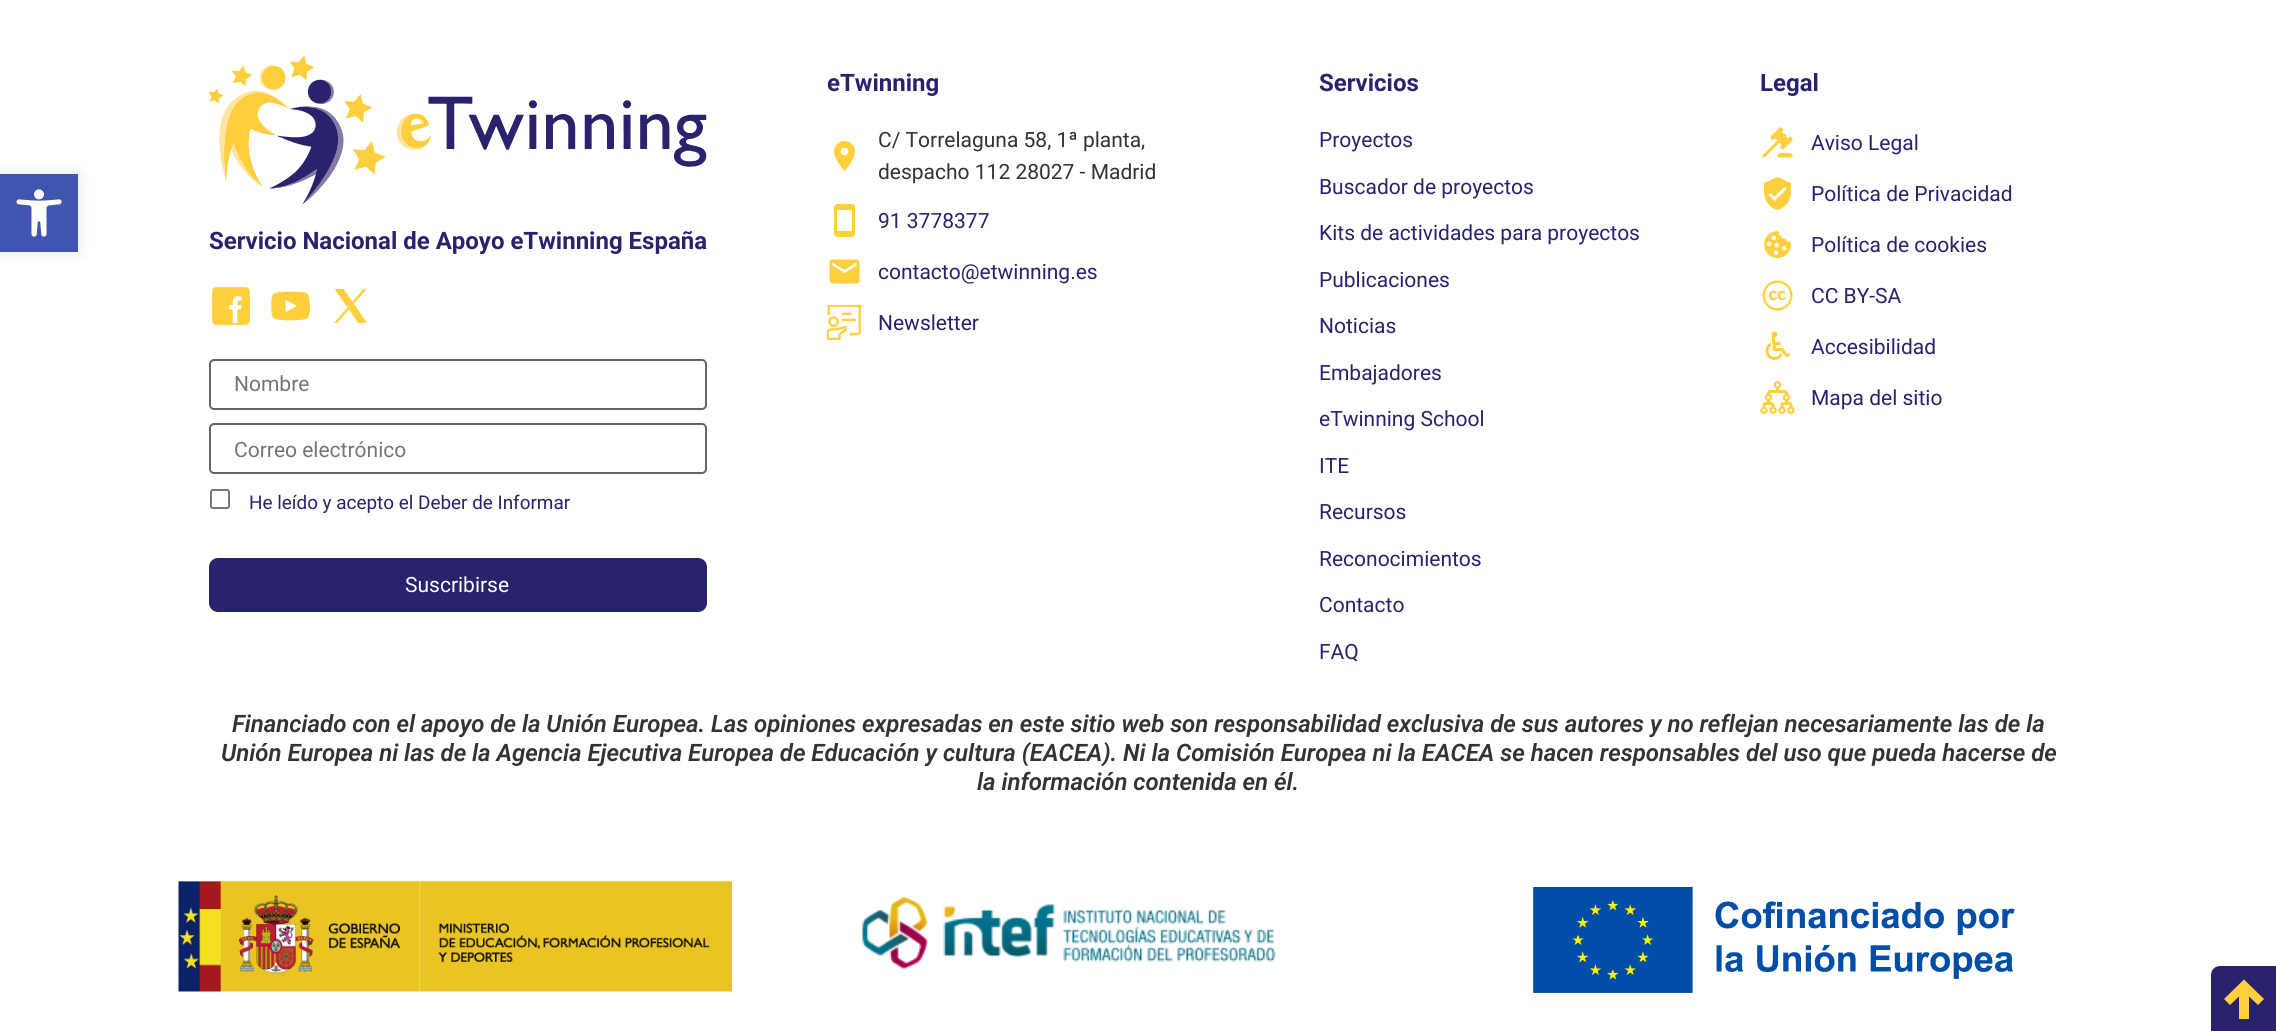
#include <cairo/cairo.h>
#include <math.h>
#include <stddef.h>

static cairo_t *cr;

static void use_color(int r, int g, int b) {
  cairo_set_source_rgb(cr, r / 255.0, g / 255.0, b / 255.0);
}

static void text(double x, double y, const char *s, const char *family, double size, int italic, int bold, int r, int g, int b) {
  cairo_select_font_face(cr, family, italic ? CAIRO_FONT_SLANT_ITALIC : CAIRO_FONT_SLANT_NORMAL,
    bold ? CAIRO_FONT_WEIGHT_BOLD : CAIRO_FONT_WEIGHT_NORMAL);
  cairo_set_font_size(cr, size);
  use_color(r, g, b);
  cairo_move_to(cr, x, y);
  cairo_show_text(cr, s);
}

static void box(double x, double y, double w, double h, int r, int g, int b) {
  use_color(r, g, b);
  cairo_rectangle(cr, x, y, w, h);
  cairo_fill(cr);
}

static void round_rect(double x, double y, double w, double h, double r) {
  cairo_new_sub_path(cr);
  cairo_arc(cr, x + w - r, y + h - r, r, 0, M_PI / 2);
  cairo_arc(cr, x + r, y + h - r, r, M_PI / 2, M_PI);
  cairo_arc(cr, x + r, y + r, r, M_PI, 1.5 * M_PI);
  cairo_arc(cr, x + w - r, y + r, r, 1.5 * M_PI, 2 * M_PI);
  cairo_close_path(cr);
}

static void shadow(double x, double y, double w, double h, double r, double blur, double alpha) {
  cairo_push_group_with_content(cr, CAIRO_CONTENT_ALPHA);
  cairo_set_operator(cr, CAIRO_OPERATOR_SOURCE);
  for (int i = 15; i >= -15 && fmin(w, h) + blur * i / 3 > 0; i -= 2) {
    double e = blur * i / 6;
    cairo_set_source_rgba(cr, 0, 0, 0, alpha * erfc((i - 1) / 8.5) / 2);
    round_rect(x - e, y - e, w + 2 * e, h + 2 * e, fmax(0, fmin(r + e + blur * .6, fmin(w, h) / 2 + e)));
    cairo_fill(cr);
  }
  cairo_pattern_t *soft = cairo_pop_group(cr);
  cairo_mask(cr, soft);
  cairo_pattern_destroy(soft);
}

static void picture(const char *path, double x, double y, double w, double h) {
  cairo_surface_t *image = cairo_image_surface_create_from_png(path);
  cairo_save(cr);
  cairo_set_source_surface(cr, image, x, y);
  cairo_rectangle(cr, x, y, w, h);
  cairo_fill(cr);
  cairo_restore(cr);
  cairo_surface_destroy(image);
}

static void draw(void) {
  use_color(255, 255, 255);
  cairo_paint(cr);
  use_color(0, 0, 0);
  shadow(0, 174, 78, 78, 0, 7.5, 0.1);
  box(0, 174, 78, 78, 64, 84, 178);
  picture("img_01.png", 16, 189, 46, 48);
  picture("img_02.png", 209, 56, 498, 148);
  picture("img_03.png", 212, 287, 38, 38);
  picture("img_04.png", 271, 291, 39, 30);
  use_color(255, 207, 61);
  cairo_new_path(cr);
  cairo_move_to(cr, 334.5, 289);
  cairo_line_to(cr, 347.5, 307.5);
  cairo_line_to(cr, 334, 323);
  cairo_line_to(cr, 337, 323);
  cairo_line_to(cr, 349, 309.5);
  cairo_line_to(cr, 358, 323);
  cairo_line_to(cr, 367, 323);
  cairo_line_to(cr, 354, 303.5);
  cairo_line_to(cr, 366.5, 289);
  cairo_line_to(cr, 363.5, 289);
  cairo_line_to(cr, 352.5, 301.5);
  cairo_line_to(cr, 343.5, 289);
  cairo_close_path(cr);
  cairo_fill(cr);
  round_rect(210, 360, 496, 49, 4);
  use_color(102, 102, 102);
  cairo_stroke(cr);
  round_rect(210, 424, 496, 49, 4);
  cairo_stroke(cr);
  round_rect(211, 490, 18, 18, 2);
  use_color(118, 118, 118);
  cairo_stroke(cr);
  use_color(41, 35, 110);
  round_rect(209, 558, 498, 54, 9);
  cairo_fill(cr);
  picture("img_05.png", 834, 141, 21, 30);
  picture("img_06.png", 834, 204, 21, 33);
  picture("img_07.png", 829, 259, 31, 25);
  picture("img_08.png", 827, 305, 36, 36);
  picture("img_09.png", 1762, 127, 31, 31);
  picture("img_10.png", 1764, 177, 27, 33);
  picture("img_11.png", 1764, 231, 27, 27);
  picture("img_12.png", 1762, 280, 31, 31);
  picture("img_13.png", 1765, 331, 26, 29);
  picture("img_14.png", 1760, 381, 35, 33);
  picture("img_15.png", 178, 880, 554, 112);
  picture("img_16.png", 861, 896, 415, 74);
  picture("img_17.png", 1533, 887, 482, 107);
  cairo_new_path(cr);
  cairo_move_to(cr, 2220, 966);
  cairo_line_to(cr, 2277, 966);
  cairo_line_to(cr, 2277, 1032);
  cairo_line_to(cr, 2211, 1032);
  cairo_line_to(cr, 2211, 975);
  cairo_curve_to(cr, 2211, 970, 2215, 966, 2220, 966);
  cairo_close_path(cr);
  cairo_fill(cr);
  use_color(255, 207, 61);
  cairo_new_path(cr);
  cairo_move_to(cr, 2249, 1019);
  cairo_line_to(cr, 2239, 1019);
  cairo_line_to(cr, 2239, 996.5);
  cairo_line_to(cr, 2230, 1005);
  cairo_line_to(cr, 2224, 999);
  cairo_line_to(cr, 2244, 979.5);
  cairo_line_to(cr, 2264, 999);
  cairo_line_to(cr, 2258, 1005);
  cairo_line_to(cr, 2249, 996.5);
  cairo_close_path(cr);
  cairo_fill(cr);
  text(209, 249, "Servicio Nacional de Apoyo eTwinning España", "Roboto", 24, 0, 1, 41, 35, 110);
  text(234, 391, "Nombre", "Roboto", 21, 0, 0, 117, 117, 117);
  text(234, 457, "Correo electrónico", "Roboto", 21, 0, 0, 117, 117, 117);
  text(249, 509, "He leído y acepto el Deber de Informar", "Roboto", 18.9, 0, 0, 41, 35, 110);
  text(405, 592, "Suscribirse", "Roboto", 21, 0, 0, 255, 255, 255);
  text(827, 91, "eTwinning", "Roboto", 24, 0, 1, 41, 35, 110);
  text(878, 147, "C/ Torrelaguna 58, 1ª planta,", "Roboto", 21, 0, 0, 51, 51, 51);
  text(878, 179, "despacho 112 28027 - Madrid", "Roboto", 21, 0, 0, 51, 51, 51);
  text(878, 228, "91 3778377", "Roboto", 21, 0, 0, 41, 35, 110);
  text(878, 279, "contacto@etwinning.es", "Roboto", 21, 0, 0, 41, 35, 110);
  text(878, 330, "Newsletter", "Roboto", 21, 0, 0, 41, 35, 110);
  text(1319, 91, "Servicios", "Roboto", 24, 0, 1, 41, 35, 110);
  text(1319, 147, "Proyectos", "Roboto", 21, 0, 0, 41, 35, 110);
  text(1319, 194, "Buscador de proyectos", "Roboto", 21, 0, 0, 41, 35, 110);
  text(1319, 240, "Kits de actividades para proyectos", "Roboto", 21, 0, 0, 41, 35, 110);
  text(1319, 287, "Publicaciones", "Roboto", 21, 0, 0, 41, 35, 110);
  text(1319, 333, "Noticias", "Roboto", 21, 0, 0, 41, 35, 110);
  text(1319, 380, "Embajadores", "Roboto", 21, 0, 0, 41, 35, 110);
  text(1319, 426, "eTwinning School", "Roboto", 21, 0, 0, 41, 35, 110);
  text(1319, 473, "ITE", "Roboto", 21, 0, 0, 41, 35, 110);
  text(1319, 519, "Recursos", "Roboto", 21, 0, 0, 41, 35, 110);
  text(1319, 566, "Reconocimientos", "Roboto", 21, 0, 0, 41, 35, 110);
  text(1319, 612, "Contacto", "Roboto", 21, 0, 0, 41, 35, 110);
  text(1319, 659, "FAQ", "Roboto", 21, 0, 0, 41, 35, 110);
  text(1760, 91, "Legal", "Roboto", 24, 0, 1, 41, 35, 110);
  text(1811, 150, "Aviso Legal", "Roboto", 21, 0, 0, 41, 35, 110);
  text(1811, 201, "Política de Privacidad", "Roboto", 21, 0, 0, 41, 35, 110);
  text(1811, 252, "Política de cookies", "Roboto", 21, 0, 0, 41, 35, 110);
  text(1811, 303, "CC BY-SA", "Roboto", 21, 0, 0, 41, 35, 110);
  text(1811, 354, "Accesibilidad", "Roboto", 21, 0, 0, 41, 35, 110);
  text(1811, 405, "Mapa del sitio", "Roboto", 21, 0, 0, 41, 35, 110);
  text(232, 732, "Financiado con el apoyo de la Unión Europea. Las opiniones expresadas en este sitio web son responsabilidad exclusiva de sus autores y no reflejan necesariamente las de la", "Roboto SemiBold", 24, 1, 0, 51, 51, 51);
  text(221, 761, "Unión Europea ni las de la Agencia Ejecutiva Europea de Educación y cultura (EACEA). Ni la Comisión Europea ni la EACEA se hacen responsables del uso que pueda hacerse de", "Roboto SemiBold", 24, 1, 0, 51, 51, 51);
  text(977, 790, "la información contenida en él.", "Roboto SemiBold", 24, 1, 0, 51, 51, 51);
}

int main(void) {
  cairo_surface_t *surface = cairo_image_surface_create(CAIRO_FORMAT_RGB24, 2276, 1031);
  cr = cairo_create(surface);
  cairo_font_options_t *options = cairo_font_options_create();
  cairo_font_options_set_hint_metrics(options, CAIRO_HINT_METRICS_OFF);
  cairo_font_options_set_hint_style(options, CAIRO_HINT_STYLE_NONE);
  cairo_set_font_options(cr, options);
  cairo_set_miter_limit(cr, 4);
  draw();
  cairo_surface_write_to_png(surface, "out.png");
  cairo_font_options_destroy(options);
  cairo_destroy(cr);
  cairo_surface_destroy(surface);
  return 0;
}
